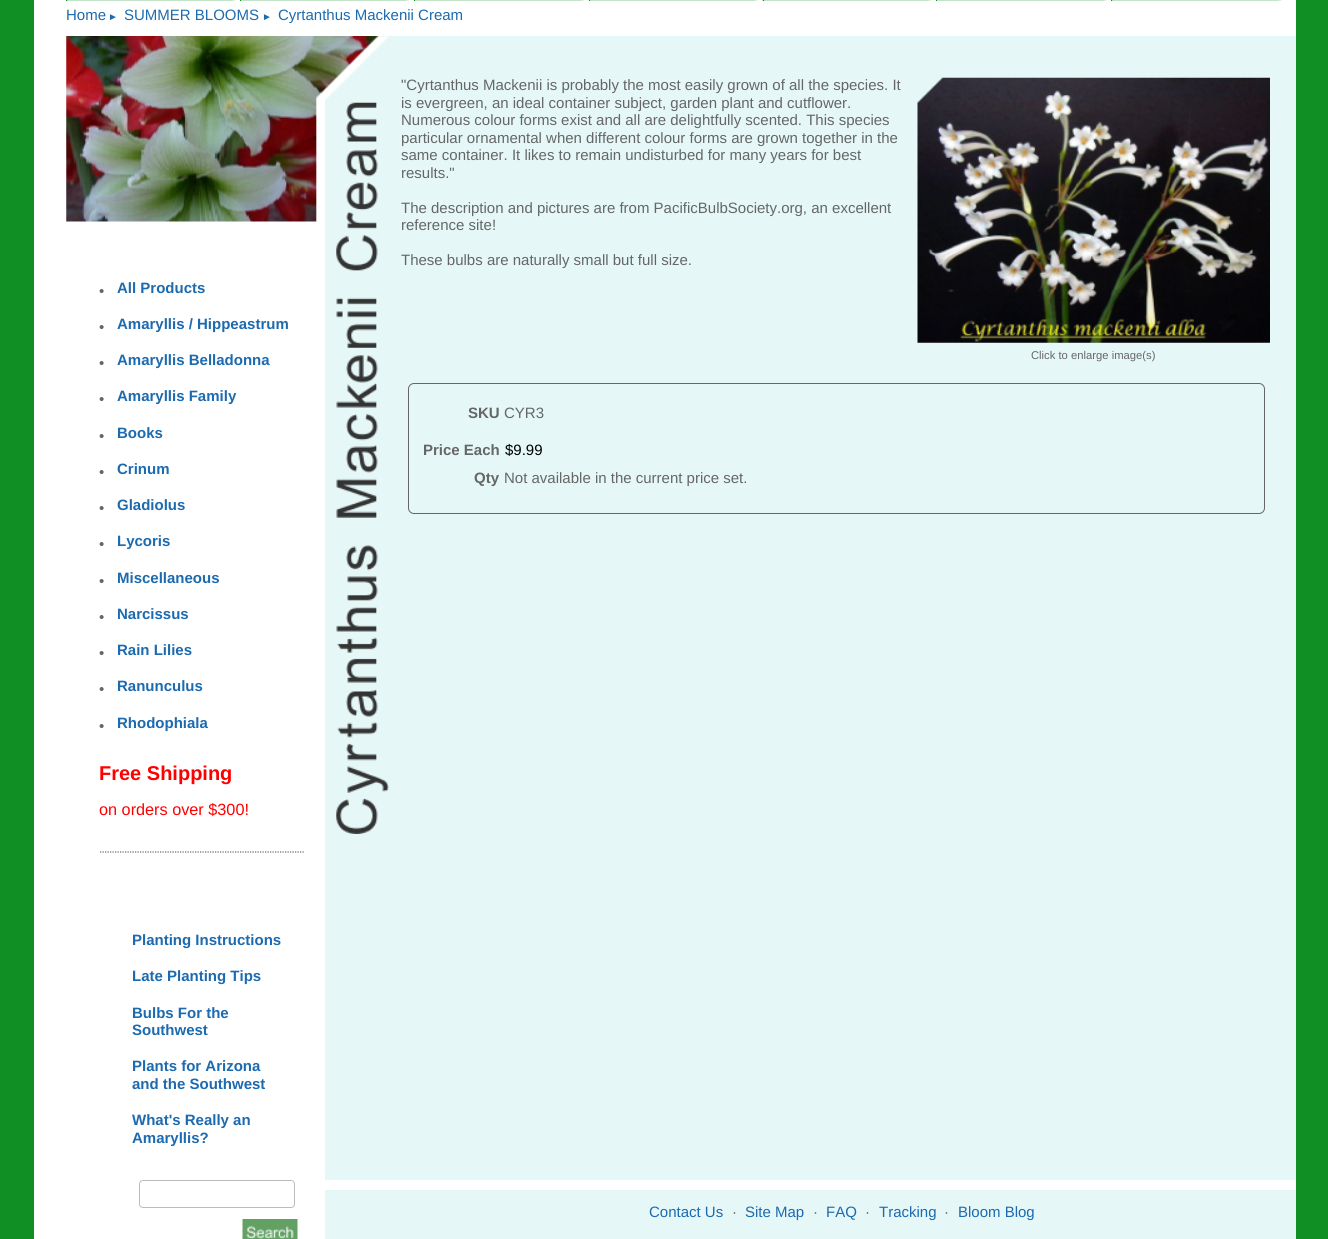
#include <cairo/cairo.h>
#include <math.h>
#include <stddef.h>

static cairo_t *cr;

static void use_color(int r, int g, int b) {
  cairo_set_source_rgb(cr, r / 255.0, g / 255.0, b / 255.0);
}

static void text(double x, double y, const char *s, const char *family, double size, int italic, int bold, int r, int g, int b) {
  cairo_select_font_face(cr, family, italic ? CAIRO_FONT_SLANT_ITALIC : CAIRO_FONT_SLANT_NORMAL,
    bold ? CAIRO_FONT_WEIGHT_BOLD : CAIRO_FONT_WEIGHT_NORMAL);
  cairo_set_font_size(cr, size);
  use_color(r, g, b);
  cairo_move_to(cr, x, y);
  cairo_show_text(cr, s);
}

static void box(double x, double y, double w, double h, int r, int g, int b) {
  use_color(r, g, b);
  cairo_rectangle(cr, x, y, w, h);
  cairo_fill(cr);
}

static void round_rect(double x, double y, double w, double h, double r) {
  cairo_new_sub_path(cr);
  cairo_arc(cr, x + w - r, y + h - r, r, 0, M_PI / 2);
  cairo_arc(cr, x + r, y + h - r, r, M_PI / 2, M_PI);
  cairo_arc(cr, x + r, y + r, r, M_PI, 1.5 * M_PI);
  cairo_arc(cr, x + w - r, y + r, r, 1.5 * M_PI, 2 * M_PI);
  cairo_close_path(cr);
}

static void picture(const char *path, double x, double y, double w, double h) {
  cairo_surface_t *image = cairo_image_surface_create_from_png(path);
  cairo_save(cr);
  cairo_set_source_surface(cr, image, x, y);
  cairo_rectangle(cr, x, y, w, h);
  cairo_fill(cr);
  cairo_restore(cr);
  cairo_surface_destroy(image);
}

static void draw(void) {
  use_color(16, 143, 36);
  cairo_paint(cr);
  box(34, 0, 1262, 36, 255, 255, 255);
  picture("img_01.png", 67, 0, 1046, 1);
  picture("img_02.png", 67, 0, 169, 1);
  box(66, 0, 1, 1, 16, 143, 36);
  picture("img_03.png", 241, 0, 168, 1);
  box(240, 0, 1, 1, 16, 143, 36);
  picture("img_04.png", 415, 0, 169, 1);
  box(414, 0, 1, 1, 16, 143, 36);
  picture("img_05.png", 588, 0, 170, 1);
  box(589, 0, 1, 1, 16, 143, 36);
  picture("img_06.png", 762, 0, 170, 1);
  box(763, 0, 1, 1, 16, 143, 36);
  picture("img_07.png", 937, 0, 170, 1);
  box(936, 0, 1, 1, 16, 143, 36);
  picture("img_08.png", 1112, 0, 170, 1);
  box(1111, 0, 1, 1, 16, 143, 36);
  box(34, 36, 291, 1144, 255, 255, 255);
  box(325, 36, 971, 1144, 229, 247, 247);
  picture("img_10.png", 325, 36, 64, 798);
  picture("img_09.png", 66, 36, 313, 186);
  cairo_new_path(cr);
  cairo_move_to(cr, 100, 852);
  cairo_line_to(cr, 305, 852);
  use_color(102, 102, 102);
  cairo_set_line_width(cr, 1.2);
  cairo_set_dash(cr, (double[]){1.25, 1.25}, 2, 0);
  cairo_stroke(cr);
  box(34, 1180, 1262, 10, 255, 255, 255);
  box(34, 1190, 291, 49, 255, 255, 255);
  round_rect(139.5, 1180.5, 155, 27, 3.5);
  use_color(187, 187, 187);
  cairo_set_line_width(cr, 1);
  cairo_set_dash(cr, NULL, 0, 0);
  cairo_stroke(cr);
  use_color(255, 255, 255);
  round_rect(140, 1181, 154, 25, 4);
  cairo_fill(cr);
  picture("img_11.png", 242, 1219, 56, 20);
  picture("img_12.png", 917, 77, 353, 266);
  round_rect(408.5, 383.5, 856, 130, 5.5);
  use_color(102, 102, 102);
  cairo_stroke(cr);
  box(325, 1190, 971, 49, 229, 247, 247);
  text(66, 20, "Home", "Liberation Sans", 15, 0, 0, 28, 106, 175);
  text(108, 20, "►", "Liberation Sans", 10, 0, 0, 28, 106, 175);
  text(124, 20, "SUMMER BLOOMS", "Liberation Sans", 15, 0, 0, 28, 106, 175);
  text(262, 20, "►", "Liberation Sans", 10, 0, 0, 28, 106, 175);
  text(278, 20, "Cyrtanthus Mackenii Cream", "Liberation Sans", 15, 0, 0, 28, 106, 175);
  text(99, 296, "•", "Liberation Sans", 15, 0, 0, 102, 102, 102);
  text(117, 293, "All Products", "Liberation Sans", 15, 0, 1, 28, 106, 175);
  text(99, 332, "•", "Liberation Sans", 15, 0, 0, 102, 102, 102);
  text(117, 329, "Amaryllis / Hippeastrum", "Liberation Sans", 15, 0, 1, 28, 106, 175);
  text(99, 368, "•", "Liberation Sans", 15, 0, 0, 102, 102, 102);
  text(117, 365, "Amaryllis Belladonna", "Liberation Sans", 15, 0, 1, 28, 106, 175);
  text(99, 404, "•", "Liberation Sans", 15, 0, 0, 102, 102, 102);
  text(117, 401, "Amaryllis Family", "Liberation Sans", 15, 0, 1, 28, 106, 175);
  text(99, 441, "•", "Liberation Sans", 15, 0, 0, 102, 102, 102);
  text(117, 438, "Books", "Liberation Sans", 15, 0, 1, 28, 106, 175);
  text(99, 477, "•", "Liberation Sans", 15, 0, 0, 102, 102, 102);
  text(117, 474, "Crinum", "Liberation Sans", 15, 0, 1, 28, 106, 175);
  text(99, 513, "•", "Liberation Sans", 15, 0, 0, 102, 102, 102);
  text(117, 510, "Gladiolus", "Liberation Sans", 15, 0, 1, 28, 106, 175);
  text(99, 549, "•", "Liberation Sans", 15, 0, 0, 102, 102, 102);
  text(117, 546, "Lycoris", "Liberation Sans", 15, 0, 1, 28, 106, 175);
  text(99, 586, "•", "Liberation Sans", 15, 0, 0, 102, 102, 102);
  text(117, 583, "Miscellaneous", "Liberation Sans", 15, 0, 1, 28, 106, 175);
  text(99, 622, "•", "Liberation Sans", 15, 0, 0, 102, 102, 102);
  text(117, 619, "Narcissus", "Liberation Sans", 15, 0, 1, 28, 106, 175);
  text(99, 658, "•", "Liberation Sans", 15, 0, 0, 102, 102, 102);
  text(117, 655, "Rain Lilies", "Liberation Sans", 15, 0, 1, 28, 106, 175);
  text(99, 694, "•", "Liberation Sans", 15, 0, 0, 102, 102, 102);
  text(117, 691, "Ranunculus", "Liberation Sans", 15, 0, 1, 28, 106, 175);
  text(99, 731, "•", "Liberation Sans", 15, 0, 0, 102, 102, 102);
  text(117, 728, "Rhodophiala", "Liberation Sans", 15, 0, 1, 28, 106, 175);
  text(99, 780, "Free Shipping", "Liberation Sans", 20, 0, 1, 255, 0, 0);
  text(99, 815, "on orders over $300!", "Liberation Sans", 16.25, 0, 0, 255, 0, 0);
  text(132, 945, "Planting Instructions", "Liberation Sans", 15, 0, 1, 28, 106, 175);
  text(132, 981, "Late Planting Tips", "Liberation Sans", 15, 0, 1, 28, 106, 175);
  text(132, 1018, "Bulbs For the", "Liberation Sans", 15, 0, 1, 28, 106, 175);
  text(132, 1035, "Southwest", "Liberation Sans", 15, 0, 1, 28, 106, 175);
  text(132, 1071, "Plants for Arizona", "Liberation Sans", 15, 0, 1, 28, 106, 175);
  text(132, 1089, "and the Southwest", "Liberation Sans", 15, 0, 1, 28, 106, 175);
  text(132, 1125, "What's Really an", "Liberation Sans", 15, 0, 1, 28, 106, 175);
  text(132, 1143, "Amaryllis?", "Liberation Sans", 15, 0, 1, 28, 106, 175);
  text(401, 90, "\"Cyrtanthus Mackenii is probably the most easily grown of all the species. It", "Liberation Sans", 15, 0, 0, 102, 102, 102);
  text(401, 108, "is evergreen, an ideal container subject, garden plant and cutflower.", "Liberation Sans", 15, 0, 0, 102, 102, 102);
  text(401, 125, "Numerous colour forms exist and all are delightfully scented. This species", "Liberation Sans", 15, 0, 0, 102, 102, 102);
  text(401, 143, "particular ornamental when different colour forms are grown together in the", "Liberation Sans", 15, 0, 0, 102, 102, 102);
  text(401, 160, "same container. It likes to remain undisturbed for many years for best", "Liberation Sans", 15, 0, 0, 102, 102, 102);
  text(401, 178, "results.\"", "Liberation Sans", 15, 0, 0, 102, 102, 102);
  text(401, 213, "The description and pictures are from PacificBulbSociety.org, an excellent", "Liberation Sans", 15, 0, 0, 102, 102, 102);
  text(401, 230, "reference site!", "Liberation Sans", 15, 0, 0, 102, 102, 102);
  text(401, 265, "These bulbs are naturally small but full size.", "Liberation Sans", 15, 0, 0, 102, 102, 102);
  text(1031, 359, "Click to enlarge image(s)", "Liberation Sans", 11.25, 0, 0, 102, 102, 102);
  text(468, 418, "SKU", "Liberation Sans", 15, 0, 1, 102, 102, 102);
  text(504, 418, "CYR3", "Liberation Sans", 15, 0, 0, 102, 102, 102);
  text(423, 455, "Price Each", "Liberation Sans", 15, 0, 1, 102, 102, 102);
  text(505, 455, "$9.99", "Liberation Sans", 15, 0, 0, 0, 0, 0);
  text(474, 483, "Qty", "Liberation Sans", 15, 0, 1, 102, 102, 102);
  text(504, 483, "Not available in the current price set.", "Liberation Sans", 15, 0, 0, 102, 102, 102);
  text(649, 1217, "Contact Us", "Liberation Sans", 15, 0, 0, 28, 106, 175);
  text(732, 1217, "·", "Liberation Sans", 15, 0, 0, 102, 102, 102);
  text(745, 1217, "Site Map", "Liberation Sans", 15, 0, 0, 28, 106, 175);
  text(813, 1217, "·", "Liberation Sans", 15, 0, 0, 102, 102, 102);
  text(826, 1217, "FAQ", "Liberation Sans", 15, 0, 0, 28, 106, 175);
  text(865, 1217, "·", "Liberation Sans", 15, 0, 0, 102, 102, 102);
  text(879, 1217, "Tracking", "Liberation Sans", 15, 0, 0, 28, 106, 175);
  text(944, 1217, "·", "Liberation Sans", 15, 0, 0, 102, 102, 102);
  text(958, 1217, "Bloom Blog", "Liberation Sans", 15, 0, 0, 28, 106, 175);
}

int main(void) {
  cairo_surface_t *surface = cairo_image_surface_create(CAIRO_FORMAT_RGB24, 1328, 1239);
  cr = cairo_create(surface);
  cairo_font_options_t *options = cairo_font_options_create();
  cairo_font_options_set_hint_metrics(options, CAIRO_HINT_METRICS_OFF);
  cairo_font_options_set_hint_style(options, CAIRO_HINT_STYLE_NONE);
  cairo_set_font_options(cr, options);
  cairo_set_miter_limit(cr, 4);
  draw();
  cairo_surface_write_to_png(surface, "out.png");
  cairo_font_options_destroy(options);
  cairo_destroy(cr);
  cairo_surface_destroy(surface);
  return 0;
}
